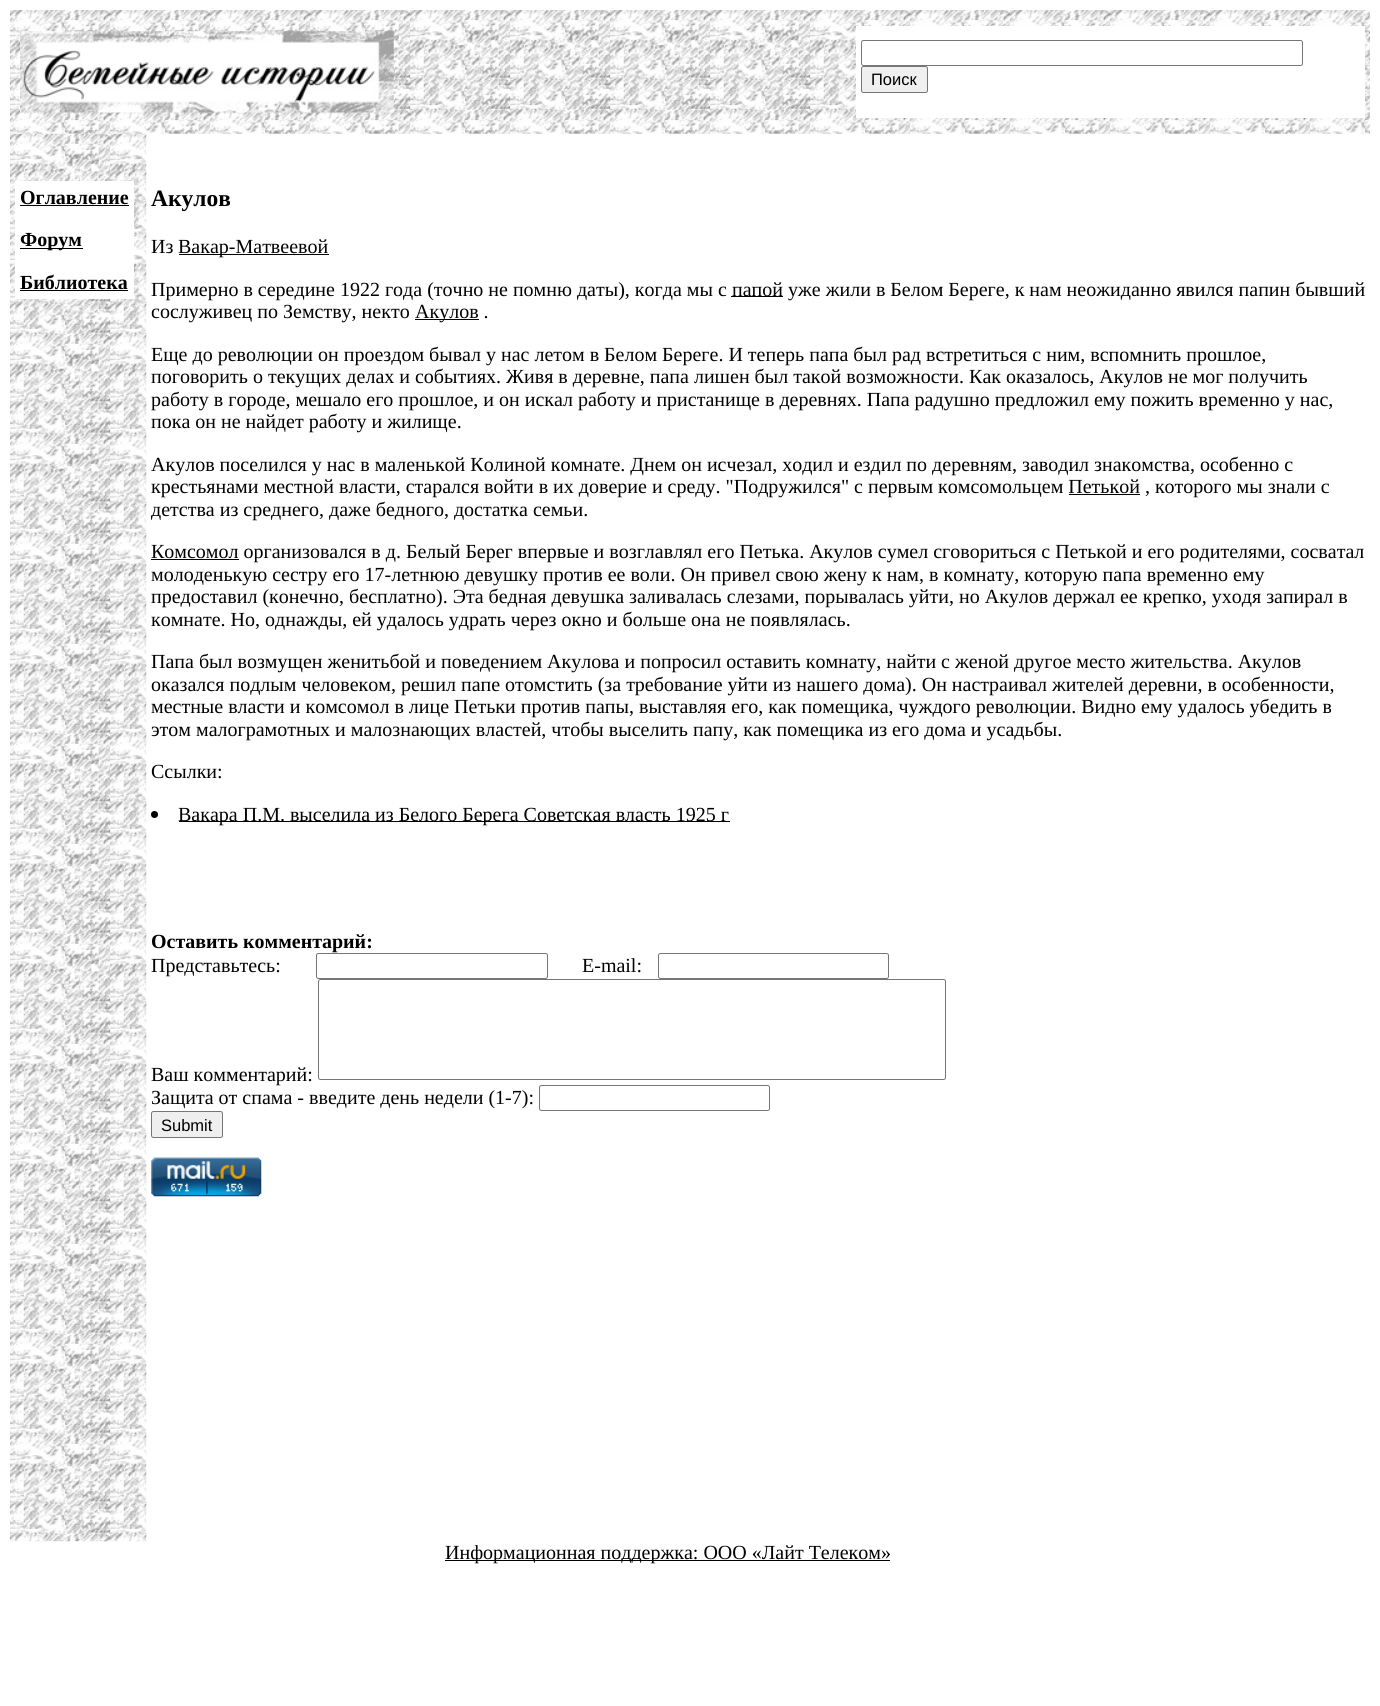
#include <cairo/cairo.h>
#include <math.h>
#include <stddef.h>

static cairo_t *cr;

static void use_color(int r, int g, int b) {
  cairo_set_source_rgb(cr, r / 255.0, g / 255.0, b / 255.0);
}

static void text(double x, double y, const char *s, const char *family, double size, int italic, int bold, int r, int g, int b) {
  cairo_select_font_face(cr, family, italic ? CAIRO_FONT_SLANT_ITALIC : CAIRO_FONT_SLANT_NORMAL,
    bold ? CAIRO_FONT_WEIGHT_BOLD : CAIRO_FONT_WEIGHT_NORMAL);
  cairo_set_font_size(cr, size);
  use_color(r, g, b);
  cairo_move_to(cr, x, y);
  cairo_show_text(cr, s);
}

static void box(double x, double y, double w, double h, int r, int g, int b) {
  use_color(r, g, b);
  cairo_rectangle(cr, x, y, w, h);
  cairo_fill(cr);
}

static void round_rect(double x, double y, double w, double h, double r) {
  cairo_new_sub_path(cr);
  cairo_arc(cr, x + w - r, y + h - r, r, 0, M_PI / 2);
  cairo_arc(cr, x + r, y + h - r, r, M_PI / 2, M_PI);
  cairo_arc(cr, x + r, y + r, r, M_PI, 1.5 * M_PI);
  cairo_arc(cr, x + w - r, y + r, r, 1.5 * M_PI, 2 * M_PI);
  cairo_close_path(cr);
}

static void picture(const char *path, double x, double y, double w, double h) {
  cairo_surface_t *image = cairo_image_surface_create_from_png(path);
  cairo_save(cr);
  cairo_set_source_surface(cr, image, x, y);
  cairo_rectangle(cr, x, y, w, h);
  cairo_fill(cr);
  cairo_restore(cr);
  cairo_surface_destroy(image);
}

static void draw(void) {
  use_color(255, 255, 255);
  cairo_paint(cr);
  picture("img_01.png", 10, 10, 1360, 124);
  picture("img_02.png", 20, 31, 374, 82);
  box(856, 26, 509, 92, 255, 255, 255);
  round_rect(861.5, 40.5, 441, 25, 2);
  use_color(118, 118, 118);
  cairo_set_line_width(cr, 1);
  cairo_stroke(cr);
  use_color(239, 239, 239);
  round_rect(861.5, 66.5, 66, 26, 2);
  cairo_fill_preserve(cr);
  use_color(118, 118, 118);
  cairo_stroke(cr);
  picture("img_03.png", 10, 133, 137, 1409);
  box(15, 181, 119, 118, 255, 255, 255);
  box(20, 205, 109, 1, 0, 0, 0);
  box(20, 248, 63, 1, 0, 0, 0);
  box(20, 290, 108, 1, 0, 0, 0);
  box(179, 254, 150, 1, 0, 0, 0);
  box(731, 296, 52, 1, 0, 0, 0);
  box(415, 319, 64, 1, 0, 0, 0);
  box(1069, 494, 71, 1, 0, 0, 0);
  box(151, 559, 88, 1, 0, 0, 0);
  cairo_arc(cr, 154.5, 814.5, 3.5, 0, 2 * M_PI);
  cairo_fill(cr);
  box(179, 821, 551, 1, 0, 0, 0);
  round_rect(316.5, 953.5, 231, 25, 2);
  use_color(118, 118, 118);
  cairo_stroke(cr);
  round_rect(658.5, 953.5, 230, 25, 2);
  cairo_stroke(cr);
  round_rect(318.5, 979.5, 627, 100, 2);
  cairo_stroke(cr);
  round_rect(539.5, 1085.5, 230, 25, 2);
  cairo_stroke(cr);
  use_color(239, 239, 239);
  round_rect(151.5, 1111.5, 71, 26, 2);
  cairo_fill_preserve(cr);
  use_color(118, 118, 118);
  cairo_stroke(cr);
  picture("img_04.png", 151, 1157, 111, 40);
  box(445, 1560, 445, 1, 0, 0, 0);
  text(871, 85, "Поиск", "Liberation Sans", 16.5, 0, 0, 0, 0, 0);
  text(20, 204, "Оглавление", "Liberation Serif", 20, 0, 1, 0, 0, 0);
  text(20, 246, "Форум", "Liberation Serif", 20, 0, 1, 0, 0, 0);
  text(20, 289, "Библиотека", "Liberation Serif", 20, 0, 1, 0, 0, 0);
  text(151, 206, "Акулов", "Liberation Serif", 23.5, 0, 1, 0, 0, 0);
  text(151, 253, "Из", "Liberation Serif", 20, 0, 0, 0, 0, 0);
  text(178, 253, "Вакар-Матвеевой", "Liberation Serif", 20, 0, 0, 0, 0, 0);
  text(151, 296, "Примерно в середине 1922 года (точно не помню даты), когда мы с", "Liberation Serif", 20, 0, 0, 0, 0, 0);
  text(732, 296, "папой уже жили в Белом Береге, к нам неожиданно явился папин бывший", "Liberation Serif", 20, 0, 0, 0, 0, 0);
  text(151, 318, "сослуживец по Земству, некто", "Liberation Serif", 20, 0, 0, 0, 0, 0);
  text(415, 318, "Акулов .", "Liberation Serif", 20, 0, 0, 0, 0, 0);
  text(151, 361, "Еще до революции он проездом бывал у нас летом в Белом Береге. И теперь папа был рад встретиться с ним, вспомнить прошлое,", "Liberation Serif", 20, 0, 0, 0, 0, 0);
  text(151, 383, "поговорить о текущих делах и событиях. Живя в деревне, папа лишен был такой возможности. Как оказалось, Акулов не мог получить", "Liberation Serif", 20, 0, 0, 0, 0, 0);
  text(151, 406, "работу в городе, мешало его прошлое, и он искал работу и пристанище в деревнях. Папа радушно предложил ему пожить временно у нас,", "Liberation Serif", 20, 0, 0, 0, 0, 0);
  text(151, 428, "пока он не найдет работу и жилище.", "Liberation Serif", 20, 0, 0, 0, 0, 0);
  text(151, 471, "Акулов поселился у нас в маленькой Колиной комнате. Днем он исчезал, ходил и ездил по деревням, заводил знакомства, особенно с", "Liberation Serif", 20, 0, 0, 0, 0, 0);
  text(151, 493, "крестьянами местной власти, старался войти в их доверие и среду. \"Подружился\" с первым комсомольцем Петькой , которого мы знали с", "Liberation Serif", 20, 0, 0, 0, 0, 0);
  text(151, 516, "детства из среднего, даже бедного, достатка семьи.", "Liberation Serif", 20, 0, 0, 0, 0, 0);
  text(151, 558, "Комсомол организовался в д. Белый Берег впервые и возглавлял его Петька. Акулов сумел сговориться с Петькой и его родителями, сосватал", "Liberation Serif", 20, 0, 0, 0, 0, 0);
  text(151, 581, "молоденькую сестру его 17-летнюю девушку против ее воли. Он привел свою жену к нам, в комнату, которую папа временно ему", "Liberation Serif", 20, 0, 0, 0, 0, 0);
  text(151, 603, "предоставил (конечно, бесплатно). Эта бедная девушка заливалась слезами, порывалась уйти, но Акулов держал ее крепко, уходя запирал в", "Liberation Serif", 20, 0, 0, 0, 0, 0);
  text(151, 626, "комнате. Но, однажды, ей удалось удрать через окно и больше она не появлялась.", "Liberation Serif", 20, 0, 0, 0, 0, 0);
  text(151, 668, "Папа был возмущен женитьбой и поведением Акулова и попросил оставить комнату, найти с женой другое место жительства. Акулов", "Liberation Serif", 20, 0, 0, 0, 0, 0);
  text(151, 691, "оказался подлым человеком, решил папе отомстить (за требование уйти из нашего дома). Он настраивал жителей деревни, в особенности,", "Liberation Serif", 20, 0, 0, 0, 0, 0);
  text(151, 713, "местные власти и комсомол в лице Петьки против папы, выставляя его, как помещика, чуждого революции. Видно ему удалось убедить в", "Liberation Serif", 20, 0, 0, 0, 0, 0);
  text(151, 736, "этом малограмотных и малознающих властей, чтобы выселить папу, как помещика из его дома и усадьбы.", "Liberation Serif", 20, 0, 0, 0, 0, 0);
  text(151, 778, "Ссылки:", "Liberation Serif", 20, 0, 0, 0, 0, 0);
  text(178, 821, "Вакара П.М. выселила из Белого Берега Советская власть 1925 г", "Liberation Serif", 20, 0, 0, 0, 0, 0);
  text(151, 948, "Оставить комментарий:", "Liberation Serif", 20, 0, 1, 0, 0, 0);
  text(151, 972, "Представьтесь:", "Liberation Serif", 20, 0, 0, 0, 0, 0);
  text(582, 972, "E-mail:", "Liberation Serif", 20, 0, 0, 0, 0, 0);
  text(151, 1081, "Ваш комментарий:", "Liberation Serif", 20, 0, 0, 0, 0, 0);
  text(151, 1104, "Защита от спама - введите день недели (1-7):", "Liberation Serif", 20, 0, 0, 0, 0, 0);
  text(161, 1131, "Submit", "Liberation Sans", 16.5, 0, 0, 0, 0, 0);
  text(445, 1559, "Информационная поддержка: ООО «Лайт Телеком»", "Liberation Serif", 20, 0, 0, 0, 0, 0);
}

int main(void) {
  cairo_surface_t *surface = cairo_image_surface_create(CAIRO_FORMAT_RGB24, 1380, 1706);
  cr = cairo_create(surface);
  cairo_font_options_t *options = cairo_font_options_create();
  cairo_font_options_set_hint_metrics(options, CAIRO_HINT_METRICS_OFF);
  cairo_font_options_set_hint_style(options, CAIRO_HINT_STYLE_NONE);
  cairo_set_font_options(cr, options);
  cairo_set_miter_limit(cr, 4);
  draw();
  cairo_surface_write_to_png(surface, "out.png");
  cairo_font_options_destroy(options);
  cairo_destroy(cr);
  cairo_surface_destroy(surface);
  return 0;
}
